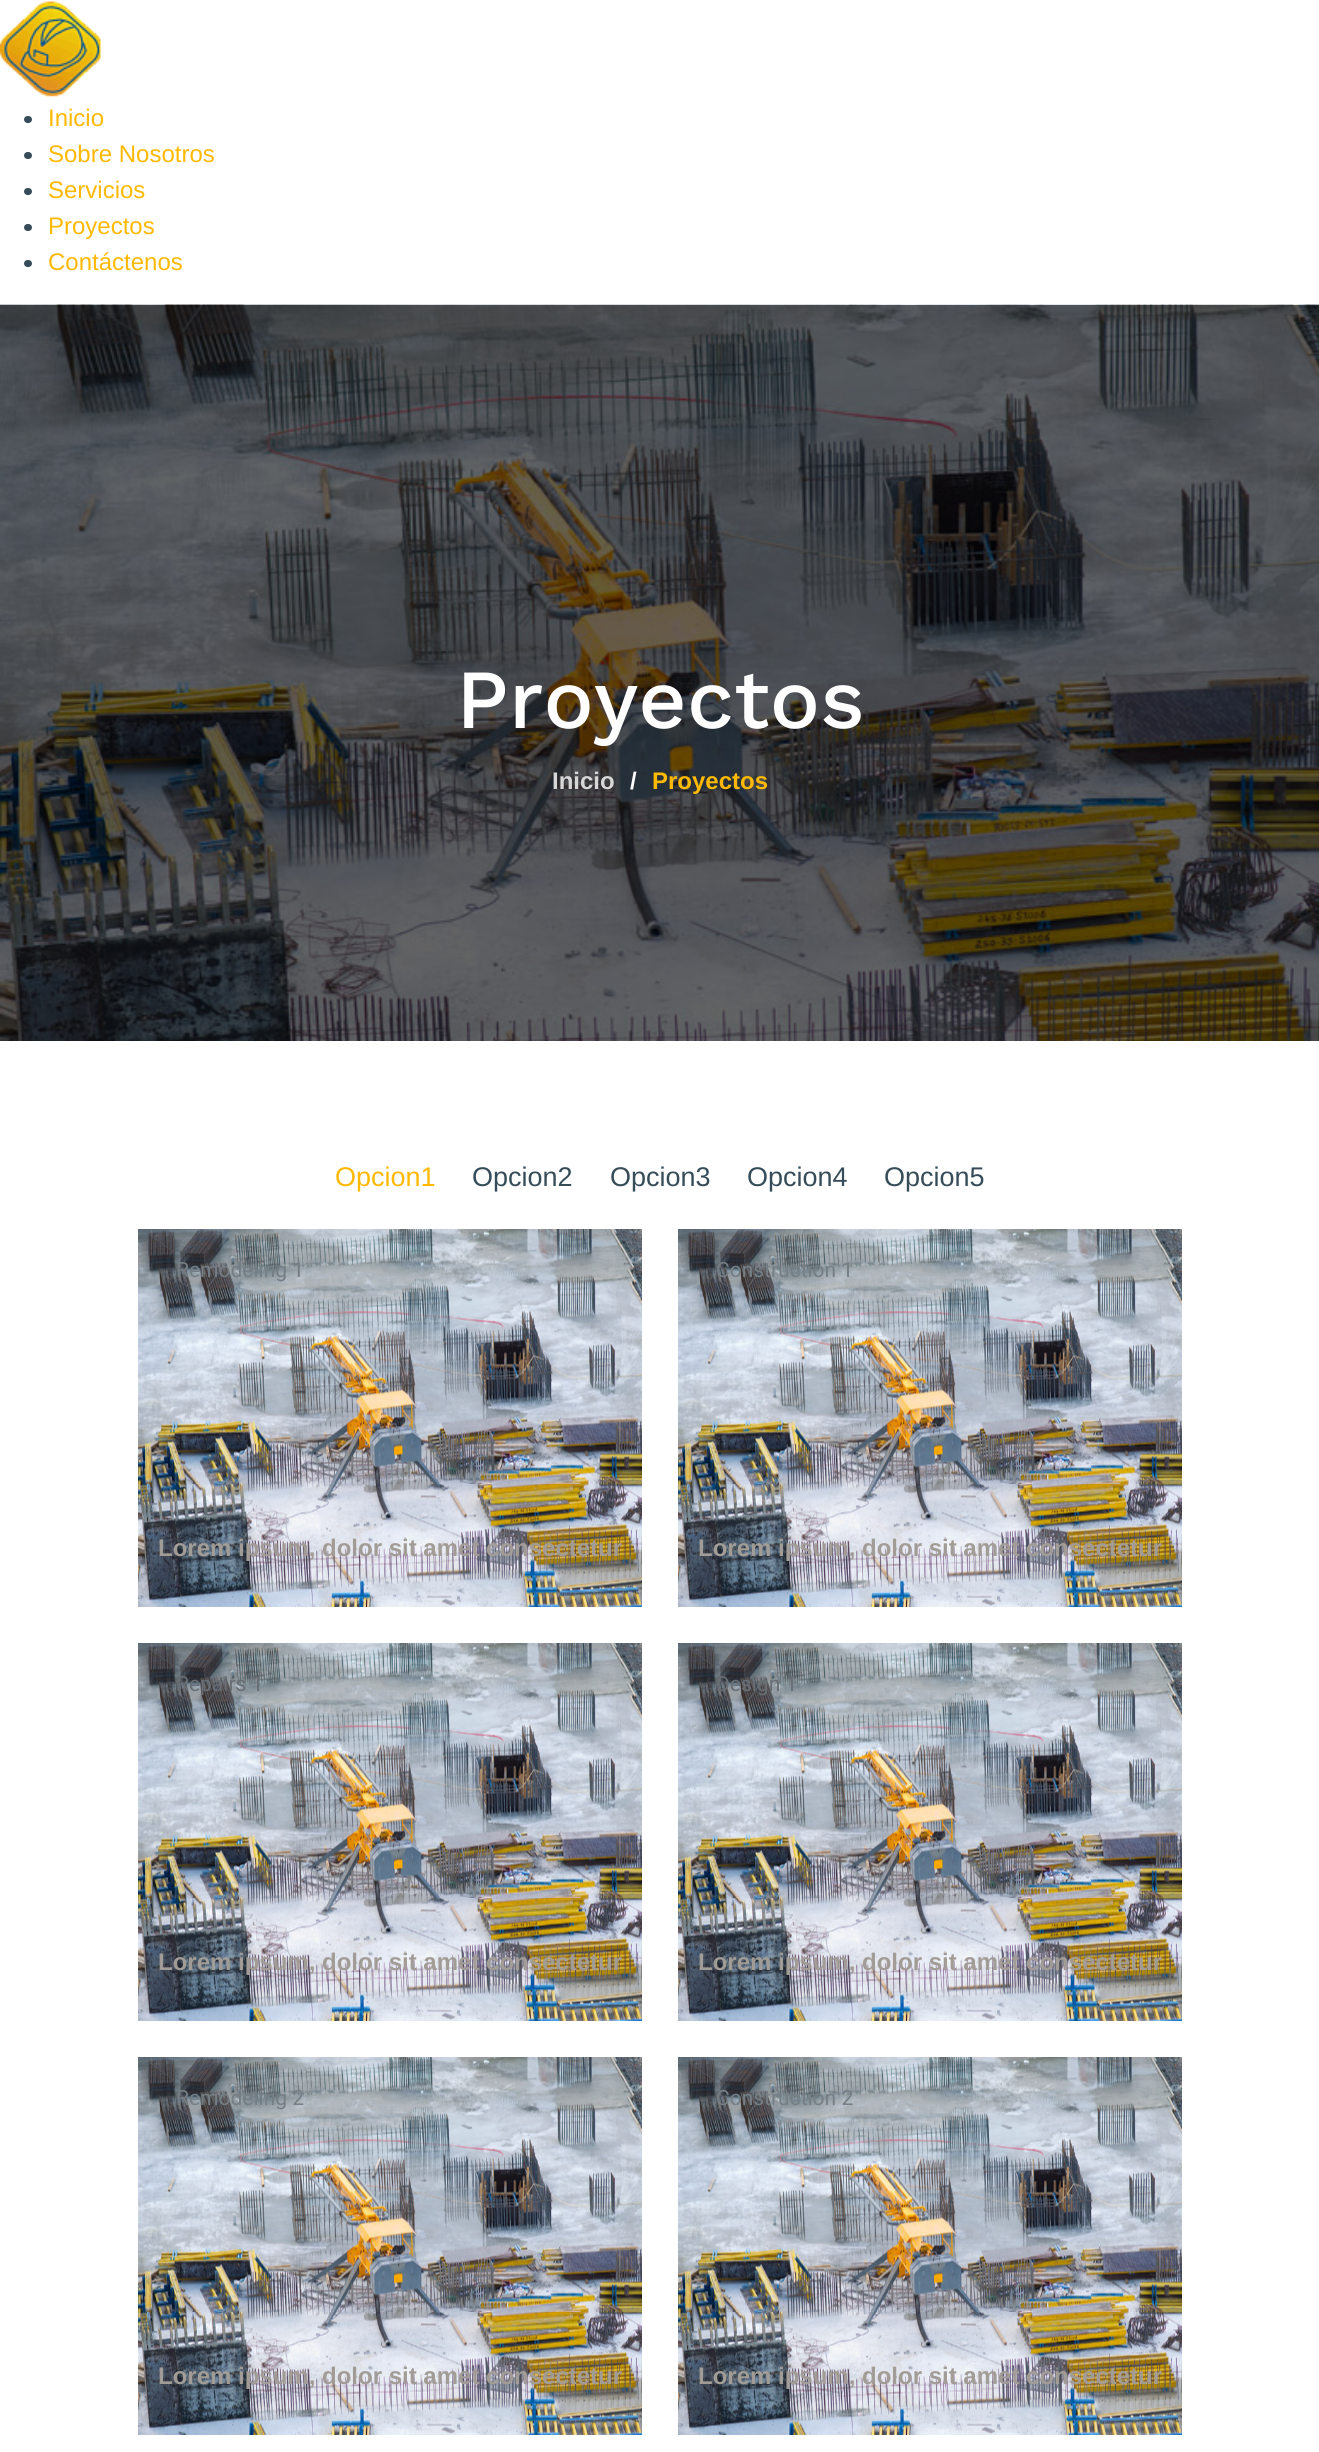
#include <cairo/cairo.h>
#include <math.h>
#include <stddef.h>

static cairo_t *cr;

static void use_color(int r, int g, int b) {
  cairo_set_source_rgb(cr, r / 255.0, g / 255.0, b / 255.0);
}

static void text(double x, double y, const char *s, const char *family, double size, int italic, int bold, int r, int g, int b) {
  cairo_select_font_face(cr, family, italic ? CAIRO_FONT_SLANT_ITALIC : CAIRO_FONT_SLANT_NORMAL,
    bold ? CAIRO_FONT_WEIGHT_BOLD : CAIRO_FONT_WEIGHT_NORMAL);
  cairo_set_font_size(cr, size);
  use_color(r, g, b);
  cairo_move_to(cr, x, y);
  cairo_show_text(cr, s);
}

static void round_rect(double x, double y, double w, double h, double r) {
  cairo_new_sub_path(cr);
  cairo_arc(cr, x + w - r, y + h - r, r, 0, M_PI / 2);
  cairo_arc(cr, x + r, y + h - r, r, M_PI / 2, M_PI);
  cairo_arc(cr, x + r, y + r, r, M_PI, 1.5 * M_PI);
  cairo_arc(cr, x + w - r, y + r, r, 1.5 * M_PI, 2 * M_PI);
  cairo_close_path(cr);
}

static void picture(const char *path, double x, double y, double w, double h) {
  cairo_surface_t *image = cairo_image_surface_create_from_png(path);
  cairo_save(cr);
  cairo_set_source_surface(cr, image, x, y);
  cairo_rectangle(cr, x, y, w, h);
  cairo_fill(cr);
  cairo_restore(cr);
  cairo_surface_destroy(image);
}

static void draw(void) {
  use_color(255, 255, 255);
  cairo_paint(cr);
  picture("img_01.png", 0, 0, 101, 98);
  use_color(54, 77, 89);
  round_rect(24, 116, 8, 7, 3.5);
  cairo_fill(cr);
  round_rect(24, 152, 8, 7, 3.5);
  cairo_fill(cr);
  round_rect(24, 188, 8, 7, 3.5);
  cairo_fill(cr);
  round_rect(24, 224, 8, 7, 3.5);
  cairo_fill(cr);
  round_rect(24, 260, 8, 7, 3.5);
  cairo_fill(cr);
  picture("img_02.png", 0, 304, 1319, 737);
  picture("img_03.png", 138, 1229, 504, 378);
  picture("img_04.png", 678, 1229, 504, 378);
  picture("img_03.png", 138, 1643, 504, 378);
  picture("img_04.png", 678, 1643, 504, 378);
  picture("img_03.png", 138, 2057, 504, 378);
  picture("img_04.png", 678, 2057, 504, 378);
  text(48, 126, "Inicio", "Liberation Sans", 24, 0, 0, 254, 185, 0);
  text(48, 162, "Sobre Nosotros", "Liberation Sans", 24, 0, 0, 254, 185, 0);
  text(48, 198, "Servicios", "Liberation Sans", 24, 0, 0, 254, 185, 0);
  text(48, 234, "Proyectos", "Liberation Sans", 24, 0, 0, 254, 185, 0);
  text(48, 270, "Contáctenos", "Liberation Sans", 24, 0, 0, 254, 185, 0);
  text(456, 728, "Proyectos", "Work Sans Medium", 84, 0, 0, 255, 255, 255);
  text(552, 789, "Inicio", "Liberation Sans", 24, 0, 1, 215, 215, 215);
  text(630, 789, "/", "Liberation Sans", 24, 0, 1, 255, 255, 255);
  text(652, 789, "Proyectos", "Liberation Sans", 24, 0, 1, 254, 185, 0);
  text(335, 1186, "Opcion1", "Liberation Sans", 27, 0, 0, 254, 185, 0);
  text(472, 1186, "Opcion2", "Liberation Sans", 27, 0, 0, 54, 77, 89);
  text(610, 1186, "Opcion3", "Liberation Sans", 27, 0, 0, 54, 77, 89);
  text(747, 1186, "Opcion4", "Liberation Sans", 27, 0, 0, 54, 77, 89);
  text(884, 1186, "Opcion5", "Liberation Sans", 27, 0, 0, 54, 77, 89);
  text(176, 1277, "Remodeling 1", "Roboto", 21, 0, 0, 117, 126, 132);
  text(158, 1556, "Lorem ipsum, dolor sit amet consectetur", "Liberation Sans", 24, 0, 1, 162, 156, 150);
  text(716, 1277, "Construction 1", "Roboto", 21, 0, 0, 117, 126, 132);
  text(698, 1556, "Lorem ipsum, dolor sit amet consectetur", "Liberation Sans", 24, 0, 1, 162, 156, 150);
  text(176, 1691, "Repairs 1", "Roboto", 21, 0, 0, 104, 110, 116);
  text(158, 1970, "Lorem ipsum, dolor sit amet consectetur", "Liberation Sans", 24, 0, 1, 162, 156, 150);
  text(716, 1691, "Design 1", "Roboto", 21, 0, 0, 104, 110, 116);
  text(698, 1970, "Lorem ipsum, dolor sit amet consectetur", "Liberation Sans", 24, 0, 1, 162, 156, 150);
  text(176, 2105, "Remodeling 2", "Roboto", 21, 0, 0, 117, 126, 132);
  text(158, 2384, "Lorem ipsum, dolor sit amet consectetur", "Liberation Sans", 24, 0, 1, 162, 156, 150);
  text(716, 2105, "Construction 2", "Roboto", 21, 0, 0, 117, 126, 132);
  text(698, 2384, "Lorem ipsum, dolor sit amet consectetur", "Liberation Sans", 24, 0, 1, 162, 156, 150);
}

int main(void) {
  cairo_surface_t *surface = cairo_image_surface_create(CAIRO_FORMAT_RGB24, 1319, 2452);
  cr = cairo_create(surface);
  cairo_font_options_t *options = cairo_font_options_create();
  cairo_font_options_set_hint_metrics(options, CAIRO_HINT_METRICS_OFF);
  cairo_font_options_set_hint_style(options, CAIRO_HINT_STYLE_NONE);
  cairo_set_font_options(cr, options);
  cairo_set_miter_limit(cr, 4);
  draw();
  cairo_surface_write_to_png(surface, "out.png");
  cairo_font_options_destroy(options);
  cairo_destroy(cr);
  cairo_surface_destroy(surface);
  return 0;
}
